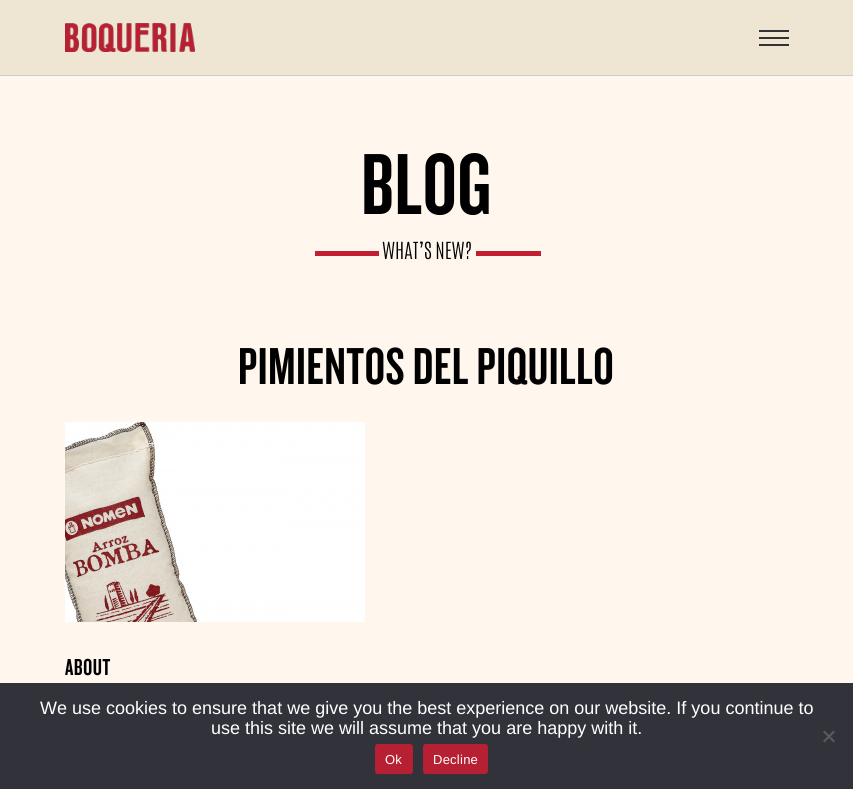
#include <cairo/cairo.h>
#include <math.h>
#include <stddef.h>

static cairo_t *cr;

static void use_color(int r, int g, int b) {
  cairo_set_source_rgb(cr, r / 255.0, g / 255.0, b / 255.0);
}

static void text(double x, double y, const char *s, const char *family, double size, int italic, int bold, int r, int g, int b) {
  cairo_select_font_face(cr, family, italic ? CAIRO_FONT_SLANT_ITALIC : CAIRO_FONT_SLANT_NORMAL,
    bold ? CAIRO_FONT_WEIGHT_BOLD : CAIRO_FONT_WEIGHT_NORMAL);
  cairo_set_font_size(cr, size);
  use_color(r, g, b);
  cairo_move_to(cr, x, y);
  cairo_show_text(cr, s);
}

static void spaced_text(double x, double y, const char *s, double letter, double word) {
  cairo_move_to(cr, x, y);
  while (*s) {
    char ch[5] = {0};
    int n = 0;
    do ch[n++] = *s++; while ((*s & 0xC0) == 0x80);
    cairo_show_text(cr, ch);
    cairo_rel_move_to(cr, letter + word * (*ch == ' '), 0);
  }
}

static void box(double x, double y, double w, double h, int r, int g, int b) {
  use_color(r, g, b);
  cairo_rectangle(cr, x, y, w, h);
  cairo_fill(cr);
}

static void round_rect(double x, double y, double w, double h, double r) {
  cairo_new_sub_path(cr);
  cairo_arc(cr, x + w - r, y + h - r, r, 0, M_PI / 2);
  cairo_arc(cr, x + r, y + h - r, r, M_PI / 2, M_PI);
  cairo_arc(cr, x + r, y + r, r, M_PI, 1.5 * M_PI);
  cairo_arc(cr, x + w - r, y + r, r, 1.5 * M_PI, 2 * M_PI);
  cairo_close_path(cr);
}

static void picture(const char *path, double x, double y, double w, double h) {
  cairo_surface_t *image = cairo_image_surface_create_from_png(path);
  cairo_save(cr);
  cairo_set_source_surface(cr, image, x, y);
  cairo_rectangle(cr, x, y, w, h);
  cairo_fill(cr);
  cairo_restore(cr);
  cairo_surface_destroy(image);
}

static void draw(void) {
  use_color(255, 246, 238);
  cairo_paint(cr);
  box(0, 0, 853, 75, 238, 229, 211);
  box(0, 75, 853, 1, 204, 204, 204);
  picture("img_01.png", 65, 23, 130, 29);
  box(759, 30, 30, 2, 51, 51, 51);
  box(759, 37, 30, 2, 51, 51, 51);
  box(759, 44, 30, 2, 51, 51, 51);
  picture("img_02.png", 364, 153, 125, 63);
  box(315, 251, 64, 5, 193, 31, 49);
  box(476, 251, 65, 5, 193, 31, 49);
  picture("img_03.png", 240, 347, 373, 38);
  picture("img_04.png", 65, 422, 300, 200);
  picture("img_05.png", 65, 658, 46, 18);
  box(0, 683, 853, 106, 50, 50, 58);
  use_color(89, 89, 93);
  cairo_new_path(cr);
  cairo_move_to(cr, 833.5, 730.5);
  cairo_line_to(cr, 835, 732);
  cairo_line_to(cr, 824.5, 742.5);
  cairo_line_to(cr, 823, 741);
  cairo_close_path(cr);
  cairo_fill(cr);
  cairo_new_path(cr);
  cairo_move_to(cr, 823, 732);
  cairo_line_to(cr, 824.5, 730.5);
  cairo_line_to(cr, 835, 741);
  cairo_line_to(cr, 833.5, 742.5);
  cairo_close_path(cr);
  cairo_fill(cr);
  use_color(183, 32, 51);
  round_rect(375, 744, 38, 30, 3);
  cairo_fill(cr);
  round_rect(423, 744, 65, 30, 3);
  cairo_fill(cr);
  text(382, 259, "WHAT’S NEW?", "Antonio Light", 20, 0, 0, 0, 0, 0);
  text(40, 714, "We use cookies to ensure that we give you the best experience on our website. If you continue to", "Liberation Sans", 18, 0, 0, 255, 255, 255);
  text(211, 734, "use this site we will assume that you are happy with it.", "Liberation Sans", 18, 0, 0, 255, 255, 255);
  cairo_set_font_size(cr, 13);
  spaced_text(385, 764, "Ok", 0.25, 0);
  spaced_text(433, 764, "Decline", 0.25, 0);
}

int main(void) {
  cairo_surface_t *surface = cairo_image_surface_create(CAIRO_FORMAT_RGB24, 853, 789);
  cr = cairo_create(surface);
  cairo_font_options_t *options = cairo_font_options_create();
  cairo_font_options_set_hint_metrics(options, CAIRO_HINT_METRICS_OFF);
  cairo_font_options_set_hint_style(options, CAIRO_HINT_STYLE_NONE);
  cairo_set_font_options(cr, options);
  cairo_set_miter_limit(cr, 4);
  draw();
  cairo_surface_write_to_png(surface, "out.png");
  cairo_font_options_destroy(options);
  cairo_destroy(cr);
  cairo_surface_destroy(surface);
  return 0;
}
